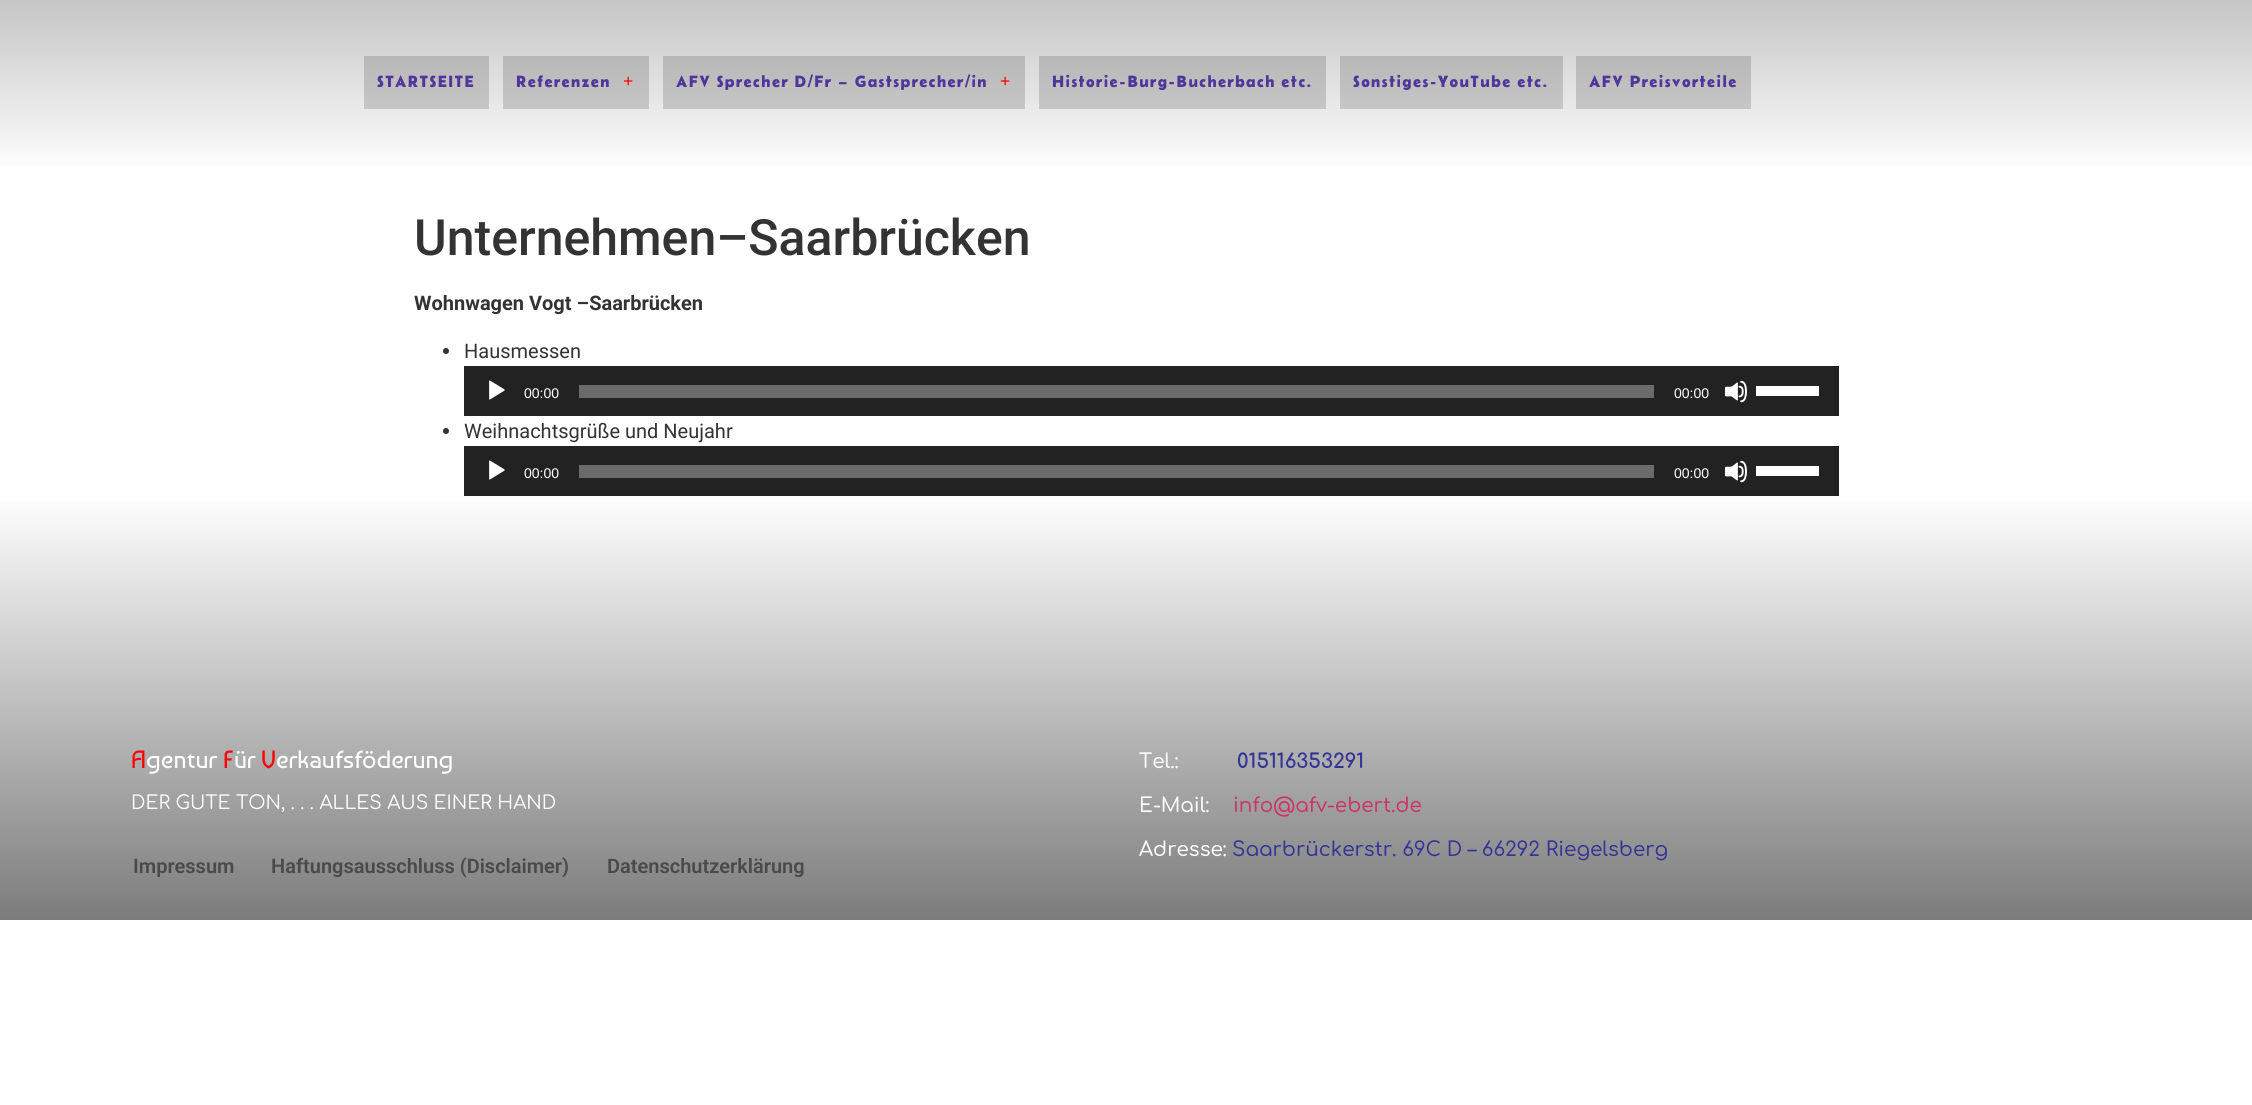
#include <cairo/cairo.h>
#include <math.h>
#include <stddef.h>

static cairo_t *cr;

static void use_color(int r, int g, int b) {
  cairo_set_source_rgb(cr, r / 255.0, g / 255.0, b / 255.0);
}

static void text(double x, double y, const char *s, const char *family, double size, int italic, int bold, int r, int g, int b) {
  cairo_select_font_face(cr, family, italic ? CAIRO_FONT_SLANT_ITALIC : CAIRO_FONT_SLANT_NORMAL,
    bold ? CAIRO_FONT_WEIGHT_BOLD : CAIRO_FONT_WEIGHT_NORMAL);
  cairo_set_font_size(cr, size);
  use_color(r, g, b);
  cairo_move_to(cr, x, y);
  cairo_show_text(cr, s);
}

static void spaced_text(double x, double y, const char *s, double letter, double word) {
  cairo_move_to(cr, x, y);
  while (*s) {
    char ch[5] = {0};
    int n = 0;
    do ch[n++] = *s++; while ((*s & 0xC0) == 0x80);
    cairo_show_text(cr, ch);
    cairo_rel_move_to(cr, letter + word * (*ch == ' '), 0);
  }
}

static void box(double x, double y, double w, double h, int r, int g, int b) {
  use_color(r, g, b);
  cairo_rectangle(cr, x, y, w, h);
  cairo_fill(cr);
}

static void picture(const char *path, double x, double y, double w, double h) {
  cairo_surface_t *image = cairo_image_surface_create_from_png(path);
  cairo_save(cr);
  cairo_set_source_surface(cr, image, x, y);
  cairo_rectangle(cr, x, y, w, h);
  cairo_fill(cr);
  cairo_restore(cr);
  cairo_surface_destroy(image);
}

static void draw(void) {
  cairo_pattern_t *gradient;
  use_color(255, 255, 255);
  cairo_paint(cr);
  gradient = cairo_pattern_create_linear(1126, 174, 1126, 0);
  cairo_pattern_add_color_stop_rgba(gradient, 0, 1, 1, 1, 1);
  cairo_pattern_add_color_stop_rgba(gradient, 1, 0.773, 0.773, 0.773, 1);
  cairo_set_source(cr, gradient);
  cairo_pattern_destroy(gradient);
  cairo_rectangle(cr, 0, 0, 2252, 166);
  cairo_fill(cr);
  gradient = cairo_pattern_create_linear(1126, 174, 1126, 0);
  cairo_pattern_add_color_stop_rgba(gradient, 0, 0.851, 0.851, 0.851, 1);
  cairo_pattern_add_color_stop_rgba(gradient, 1, 0.655, 0.655, 0.655, 1);
  cairo_set_source(cr, gradient);
  cairo_pattern_destroy(gradient);
  cairo_rectangle(cr, 1576, 56, 175, 53);
  cairo_fill(cr);
  cairo_rectangle(cr, 1340, 56, 223, 53);
  cairo_fill(cr);
  cairo_rectangle(cr, 1039, 56, 287, 53);
  cairo_fill(cr);
  cairo_rectangle(cr, 663, 56, 362, 53);
  cairo_fill(cr);
  cairo_rectangle(cr, 503, 56, 146, 53);
  cairo_fill(cr);
  cairo_rectangle(cr, 364, 56, 125, 53);
  cairo_fill(cr);
  use_color(51, 51, 51);
  cairo_arc(cr, 446, 351, 3, 0, 2 * M_PI);
  cairo_fill(cr);
  box(464, 366, 1375, 50, 34, 34, 34);
  picture("img_01.png", 489, 380, 16, 20);
  box(579, 385, 1075, 13, 107, 107, 107);
  picture("img_02.png", 1725, 380, 22, 23);
  box(1756, 386, 63, 10, 255, 255, 255);
  use_color(51, 51, 51);
  cairo_arc(cr, 446, 431, 3, 0, 2 * M_PI);
  cairo_fill(cr);
  box(464, 446, 1375, 50, 34, 34, 34);
  picture("img_01.png", 489, 460, 16, 20);
  box(579, 465, 1075, 13, 107, 107, 107);
  picture("img_02.png", 1725, 460, 22, 23);
  box(1756, 466, 63, 10, 255, 255, 255);
  gradient = cairo_pattern_create_linear(1126, 496, 1126, 920);
  cairo_pattern_add_color_stop_rgba(gradient, 0, 1, 0.996, 0.996, 1);
  cairo_pattern_add_color_stop_rgba(gradient, 1, 0.486, 0.486, 0.486, 1);
  cairo_set_source(cr, gradient);
  cairo_pattern_destroy(gradient);
  cairo_rectangle(cr, 0, 501, 2252, 419);
  cairo_fill(cr);
  cairo_select_font_face(cr, "Belanosima SemiBold", CAIRO_FONT_SLANT_NORMAL, CAIRO_FONT_WEIGHT_NORMAL);
  cairo_set_font_size(cr, 16.25);
  use_color(80, 54, 154);
  spaced_text(377, 87, "STARTSEITE", 1.4, 0);
  spaced_text(516, 87, "Referenzen", 1.4, 0);
  cairo_select_font_face(cr, "Liberation Serif", CAIRO_FONT_SLANT_NORMAL, CAIRO_FONT_WEIGHT_BOLD);
  cairo_set_font_size(cr, 18);
  use_color(255, 0, 0);
  spaced_text(623, 87, "+", 1.4, 0);
  cairo_select_font_face(cr, "Belanosima SemiBold", CAIRO_FONT_SLANT_NORMAL, CAIRO_FONT_WEIGHT_NORMAL);
  cairo_set_font_size(cr, 16.25);
  use_color(80, 54, 154);
  spaced_text(676, 87, "AFV Sprecher D/Fr – Gastsprecher/in", 1.4, 0);
  cairo_select_font_face(cr, "Liberation Serif", CAIRO_FONT_SLANT_NORMAL, CAIRO_FONT_WEIGHT_BOLD);
  cairo_set_font_size(cr, 18);
  use_color(255, 0, 0);
  spaced_text(1000, 87, "+", 1.4, 0);
  cairo_select_font_face(cr, "Belanosima SemiBold", CAIRO_FONT_SLANT_NORMAL, CAIRO_FONT_WEIGHT_NORMAL);
  cairo_set_font_size(cr, 16.25);
  use_color(80, 54, 154);
  spaced_text(1052, 87, "Historie-Burg-Bucherbach etc.", 1.4, 0);
  spaced_text(1353, 87, "Sonstiges-YouTube etc.", 1.4, 0);
  spaced_text(1589, 87, "AFV Preisvorteile", 1.4, 0);
  text(414, 255, "Unternehmen–Saarbrücken", "Roboto Medium", 50, 0, 0, 51, 51, 51);
  text(414, 310, "Wohnwagen Vogt –Saarbrücken", "Roboto", 20, 0, 1, 51, 51, 51);
  text(464, 358, "Hausmessen", "Roboto", 20, 0, 0, 51, 51, 51);
  text(524, 398, "00:00", "Liberation Sans", 14, 0, 0, 255, 255, 255);
  text(1674, 398, "00:00", "Liberation Sans", 14, 0, 0, 255, 255, 255);
  text(464, 438, "Weihnachtsgrüße und Neujahr", "Roboto", 20, 0, 0, 51, 51, 51);
  text(524, 478, "00:00", "Liberation Sans", 14, 0, 0, 255, 255, 255);
  text(1674, 478, "00:00", "Liberation Sans", 14, 0, 0, 255, 255, 255);
  text(131, 768, "A", "Baumans", 25, 0, 0, 255, 0, 0);
  text(146, 768, "gentur", "Baumans", 25, 0, 0, 255, 255, 255);
  text(223, 768, "F", "Baumans", 25, 0, 0, 255, 0, 0);
  text(234, 768, "ür", "Baumans", 25, 0, 0, 255, 255, 255);
  text(261, 768, "V", "Baumans", 25, 0, 0, 255, 0, 0);
  text(276, 768, "erkaufsföderung", "Baumans", 25, 0, 0, 255, 255, 255);
  text(131, 809, "DER GUTE TON, . . . ALLES AUS EINER HAND", "Comfortaa", 18.75, 0, 0, 255, 255, 255);
  text(133, 873, "Impressum", "Roboto SemiBold", 20, 0, 0, 75, 74, 74);
  text(271, 873, "Haftungsausschluss (Disclaimer)", "Roboto SemiBold", 20, 0, 0, 75, 74, 74);
  text(607, 873, "Datenschutzerklärung", "Roboto SemiBold", 20, 0, 0, 75, 74, 74);
  text(1139, 768, "Tel.:", "Comfortaa Medium", 20, 0, 0, 255, 255, 255);
  text(1237, 768, "015116353291", "Comfortaa", 20, 0, 1, 51, 51, 153);
  text(1139, 812, "E-Mail:", "Comfortaa Medium", 20, 0, 0, 255, 255, 255);
  text(1233, 812, "info@afv-ebert.de", "Comfortaa Medium", 20, 0, 0, 204, 51, 102);
  text(1139, 856, "Adresse:", "Comfortaa Medium", 20, 0, 0, 255, 255, 255);
  text(1232, 856, "Saarbrückerstr. 69C D – 66292 Riegelsberg", "Comfortaa Medium", 20, 0, 0, 51, 51, 153);
}

int main(void) {
  cairo_surface_t *surface = cairo_image_surface_create(CAIRO_FORMAT_RGB24, 2252, 1105);
  cr = cairo_create(surface);
  cairo_font_options_t *options = cairo_font_options_create();
  cairo_font_options_set_hint_metrics(options, CAIRO_HINT_METRICS_OFF);
  cairo_font_options_set_hint_style(options, CAIRO_HINT_STYLE_NONE);
  cairo_set_font_options(cr, options);
  cairo_set_miter_limit(cr, 4);
  draw();
  cairo_surface_write_to_png(surface, "out.png");
  cairo_font_options_destroy(options);
  cairo_destroy(cr);
  cairo_surface_destroy(surface);
  return 0;
}
